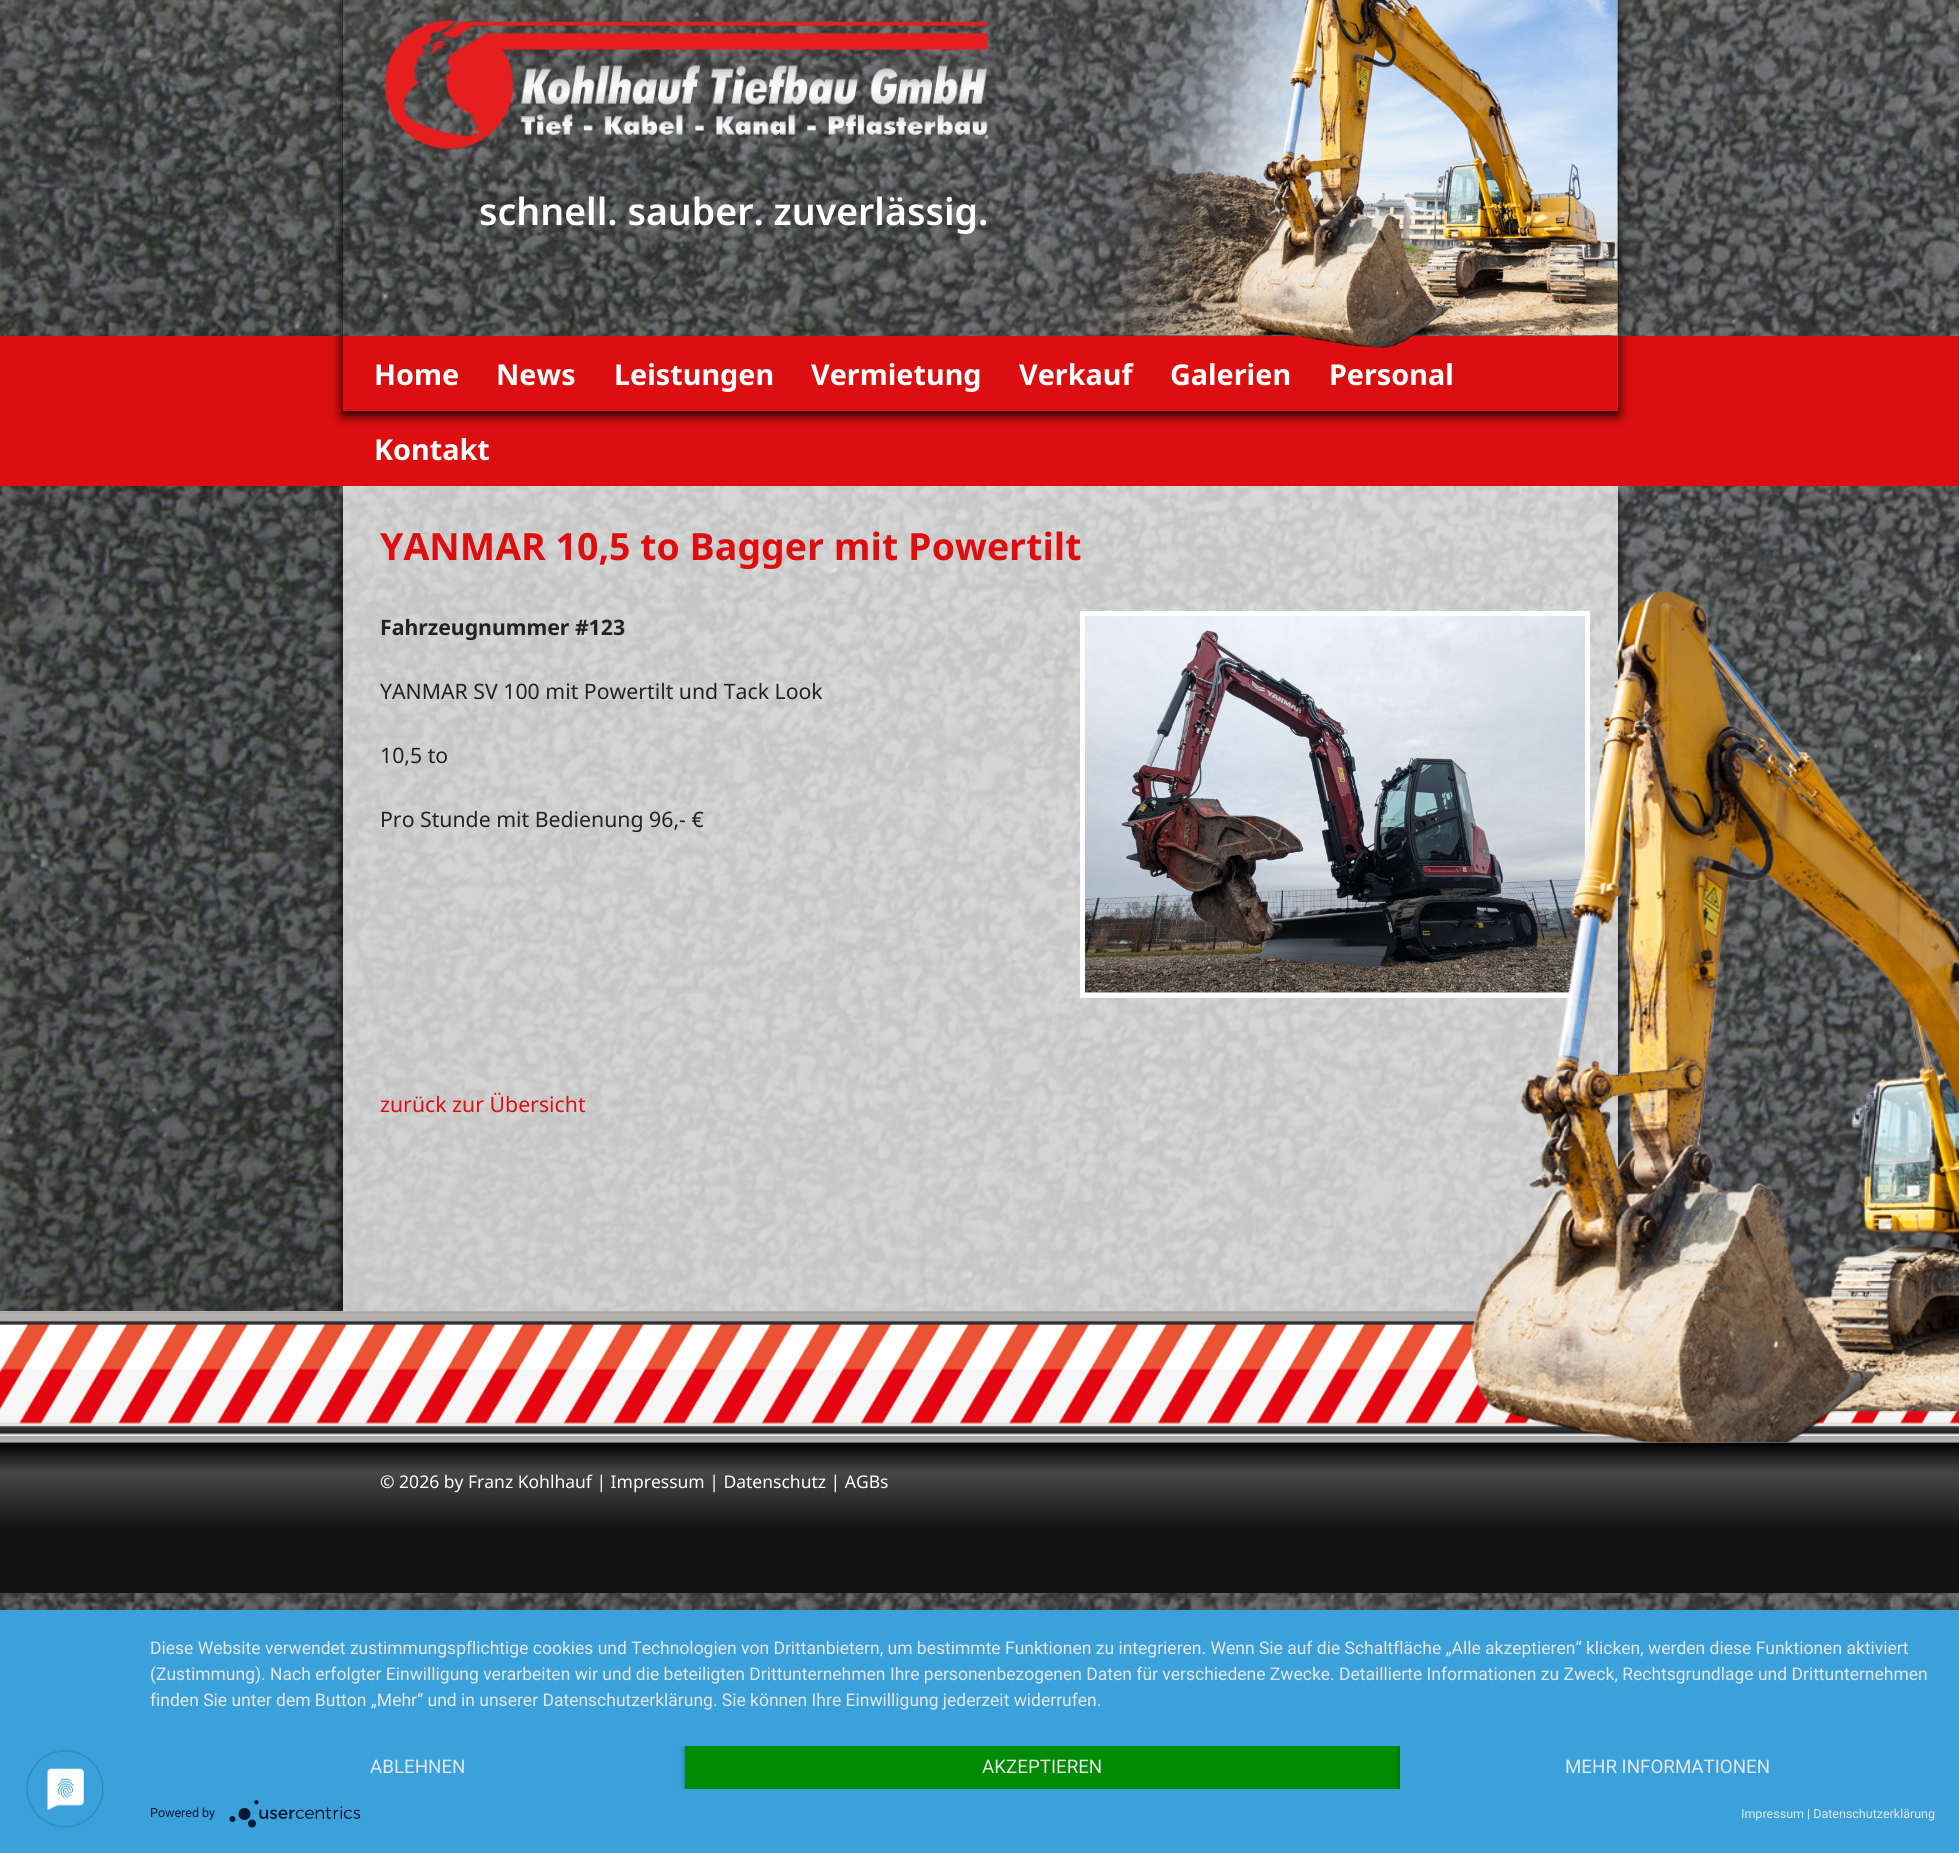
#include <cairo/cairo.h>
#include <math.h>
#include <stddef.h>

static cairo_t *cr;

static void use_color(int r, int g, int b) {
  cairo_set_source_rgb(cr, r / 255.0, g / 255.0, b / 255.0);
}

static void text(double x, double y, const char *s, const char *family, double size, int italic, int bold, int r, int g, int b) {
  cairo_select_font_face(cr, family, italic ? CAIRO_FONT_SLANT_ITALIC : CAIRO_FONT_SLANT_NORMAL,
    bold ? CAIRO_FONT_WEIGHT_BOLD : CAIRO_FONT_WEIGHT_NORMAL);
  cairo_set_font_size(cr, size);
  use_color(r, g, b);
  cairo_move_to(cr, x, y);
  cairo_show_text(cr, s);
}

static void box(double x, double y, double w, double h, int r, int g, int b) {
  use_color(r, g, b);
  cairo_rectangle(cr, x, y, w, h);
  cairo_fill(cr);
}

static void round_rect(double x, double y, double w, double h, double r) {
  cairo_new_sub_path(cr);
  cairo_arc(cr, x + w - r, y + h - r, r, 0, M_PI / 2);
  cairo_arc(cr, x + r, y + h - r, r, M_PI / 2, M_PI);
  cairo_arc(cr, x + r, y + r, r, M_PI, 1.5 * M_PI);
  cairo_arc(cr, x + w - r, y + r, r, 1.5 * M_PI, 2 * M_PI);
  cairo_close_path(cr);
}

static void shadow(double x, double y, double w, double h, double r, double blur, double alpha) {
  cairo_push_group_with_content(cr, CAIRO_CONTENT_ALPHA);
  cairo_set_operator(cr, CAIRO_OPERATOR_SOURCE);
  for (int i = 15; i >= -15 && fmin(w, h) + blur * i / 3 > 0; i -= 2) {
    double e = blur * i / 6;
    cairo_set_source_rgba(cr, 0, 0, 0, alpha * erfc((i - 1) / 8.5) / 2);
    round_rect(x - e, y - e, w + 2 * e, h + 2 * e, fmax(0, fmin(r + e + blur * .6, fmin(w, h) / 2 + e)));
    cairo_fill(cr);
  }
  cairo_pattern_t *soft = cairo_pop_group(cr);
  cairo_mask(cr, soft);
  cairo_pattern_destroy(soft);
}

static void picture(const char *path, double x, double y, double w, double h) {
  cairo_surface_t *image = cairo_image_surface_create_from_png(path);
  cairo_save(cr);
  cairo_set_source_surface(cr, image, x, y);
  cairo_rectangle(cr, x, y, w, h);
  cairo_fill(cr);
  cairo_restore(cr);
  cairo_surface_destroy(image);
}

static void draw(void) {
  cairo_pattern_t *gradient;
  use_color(255, 255, 255);
  cairo_paint(cr);
  picture("img_01.png", 0, 0, 1959, 1610);
  box(0, 336, 1959, 150, 220, 14, 15);
  cairo_save(cr);
  cairo_set_fill_rule(cr, CAIRO_FILL_RULE_EVEN_ODD);
  cairo_new_path(cr);
  cairo_move_to(cr, 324, 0);
  cairo_line_to(cr, 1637, 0);
  cairo_line_to(cr, 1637, 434);
  cairo_line_to(cr, 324, 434);
  cairo_close_path(cr);
  cairo_move_to(cr, 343, -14);
  cairo_line_to(cr, 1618, -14);
  cairo_line_to(cr, 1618, 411);
  cairo_line_to(cr, 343, 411);
  cairo_close_path(cr);
  cairo_clip(cr);
  use_color(0, 0, 0);
  shadow(343, -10, 1275, 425, 0, 6, 1);
  cairo_restore(cr);
  picture("img_02.png", 1081, 0, 537, 348);
  picture("img_03.png", 384, 20, 604, 130);
  cairo_save(cr);
  cairo_set_fill_rule(cr, CAIRO_FILL_RULE_EVEN_ODD);
  cairo_new_path(cr);
  cairo_move_to(cr, 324, 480);
  cairo_line_to(cr, 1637, 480);
  cairo_line_to(cr, 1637, 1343);
  cairo_line_to(cr, 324, 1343);
  cairo_close_path(cr);
  cairo_move_to(cr, 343, 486);
  cairo_line_to(cr, 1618, 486);
  cairo_line_to(cr, 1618, 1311);
  cairo_line_to(cr, 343, 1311);
  cairo_close_path(cr);
  cairo_clip(cr);
  use_color(0, 0, 0);
  shadow(343, 499, 1275, 825, 0, 6, 1);
  cairo_restore(cr);
  cairo_set_source_rgba(cr, 1, 1, 1, 0.72);
  cairo_rectangle(cr, 343, 486, 1275, 825);
  cairo_fill(cr);
  cairo_rectangle(cr, 1082.5, 613.5, 505, 382);
  use_color(255, 255, 255);
  cairo_set_line_width(cr, 5);
  cairo_stroke(cr);
  picture("img_04.png", 1085, 616, 500, 377);
  box(0, 1442, 1959, 1, 85, 85, 94);
  picture("img_05.png", 0, 1311, 1959, 132);
  picture("img_06.png", 1471, 590, 488, 853);
  gradient = cairo_pattern_create_linear(980, 1443, 980, 1593);
  cairo_pattern_add_color_stop_rgba(gradient, 0, 0.298, 0.298, 0.298, 1);
  cairo_pattern_add_color_stop_rgba(gradient, 0, 0, 0, 0, 1);
  cairo_pattern_add_color_stop_rgba(gradient, 0.2, 0.278, 0.278, 0.278, 1);
  cairo_pattern_add_color_stop_rgba(gradient, 0.58, 0.075, 0.075, 0.075, 1);
  cairo_set_source(cr, gradient);
  cairo_pattern_destroy(gradient);
  cairo_rectangle(cr, 0, 1443, 1959, 150);
  cairo_fill(cr);
  use_color(0, 0, 0);
  shadow(0, 1618, 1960, 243, 0, 22.5, 0.3);
  box(0, 1610, 1959, 243, 59, 161, 219);
  picture("img_07.png", 26, 1749, 78, 79);
  cairo_save(cr);
  cairo_rectangle(cr, 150, 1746, 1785, 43);
  cairo_clip(cr);
  use_color(0, 0, 0);
  shadow(685, 1748, 715, 42, 0, 2.5, 0.4);
  cairo_restore(cr);
  box(685, 1746, 715, 43, 0, 139, 2);
  cairo_save(cr);
  cairo_rectangle(cr, 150, 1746, 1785, 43);
  cairo_clip(cr);
  use_color(0, 0, 0);
  shadow(1400, 1748, 535, 42, 0, 2.5, 0.4);
  cairo_restore(cr);
  box(1400, 1746, 535, 43, 59, 161, 219);
  picture("img_08.png", 229, 1800, 132, 28);
  text(479, 225, "schnell. sauber. zuverlässig.", "Noto Sans SemiBold", 37.5, 0, 0, 255, 255, 255);
  text(374, 385, "Home", "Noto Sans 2", 28.75, 0, 1, 255, 255, 255);
  text(496, 385, "News", "Noto Sans 2", 28.75, 0, 1, 255, 255, 255);
  text(614, 385, "Leistungen", "Noto Sans 2", 28.75, 0, 1, 255, 255, 255);
  text(811, 385, "Vermietung", "Noto Sans 2", 28.75, 0, 1, 255, 255, 255);
  text(1019, 385, "Verkauf", "Noto Sans 2", 28.75, 0, 1, 255, 255, 255);
  text(1170, 385, "Galerien", "Noto Sans 2", 28.75, 0, 1, 255, 255, 255);
  text(1329, 385, "Personal", "Noto Sans 2", 28.75, 0, 1, 255, 255, 255);
  text(374, 460, "Kontakt", "Noto Sans 2", 28.75, 0, 1, 255, 255, 255);
  text(380, 560, "YANMAR 10,5 to Bagger mit Powertilt", "Noto Sans", 37.5, 0, 1, 220, 14, 15);
  text(380, 635, "Fahrzeugnummer #123", "Noto Sans 2", 21.25, 0, 1, 34, 34, 34);
  text(380, 699, "YANMAR SV 100 mit Powertilt und Tack Look", "Noto Sans", 21.25, 0, 0, 34, 34, 34);
  text(380, 763, "10,5 to", "Noto Sans", 21.25, 0, 0, 34, 34, 34);
  text(380, 827, "Pro Stunde mit Bedienung 96,- €", "Noto Sans", 21.25, 0, 0, 34, 34, 34);
  text(380, 1112, "zurück zur Übersicht", "Noto Sans", 21.25, 0, 0, 220, 14, 15);
  text(380, 1488, "© 2026 by Franz Kohlhauf | Impressum | Datenschutz | AGBs", "Noto Sans", 17.5, 0, 0, 255, 255, 255);
  text(150, 1654, "Diese Website verwendet zustimmungspflichtige cookies und Technologien von Drittanbietern, um bestimmte Funktionen zu integrieren. Wenn Sie auf die Schaltfläche „Alle akzeptieren“ klicken, werden diese Funktionen aktiviert", "Roboto", 17.5, 0, 0, 230, 230, 230);
  text(150, 1680, "(Zustimmung). Nach erfolgter Einwilligung verarbeiten wir und die beteiligten Drittunternehmen Ihre personenbezogenen Daten für verschiedene Zwecke. Detaillierte Informationen zu Zweck, Rechtsgrundlage und Drittunternehmen", "Roboto", 17.5, 0, 0, 230, 230, 230);
  text(150, 1706, "finden Sie unter dem Button „Mehr“ und in unserer Datenschutzerklärung. Sie können Ihre Einwilligung jederzeit widerrufen.", "Roboto", 17.5, 0, 0, 230, 230, 230);
  text(370, 1773, "ABLEHNEN", "Roboto", 18.75, 0, 0, 230, 230, 230);
  text(982, 1773, "AKZEPTIEREN", "Roboto", 18.75, 0, 0, 230, 230, 230);
  text(1565, 1773, "MEHR INFORMATIONEN", "Roboto", 18.75, 0, 0, 230, 230, 230);
  text(150, 1817, "Powered by", "Roboto", 12.5, 0, 0, 2, 24, 54);
  text(1741, 1818, "Impressum | Datenschutzerklärung", "Roboto", 12.5, 0, 0, 230, 230, 230);
}

int main(void) {
  cairo_surface_t *surface = cairo_image_surface_create(CAIRO_FORMAT_RGB24, 1959, 1853);
  cr = cairo_create(surface);
  cairo_font_options_t *options = cairo_font_options_create();
  cairo_font_options_set_hint_metrics(options, CAIRO_HINT_METRICS_OFF);
  cairo_font_options_set_hint_style(options, CAIRO_HINT_STYLE_NONE);
  cairo_set_font_options(cr, options);
  cairo_set_miter_limit(cr, 4);
  draw();
  cairo_surface_write_to_png(surface, "out.png");
  cairo_font_options_destroy(options);
  cairo_destroy(cr);
  cairo_surface_destroy(surface);
  return 0;
}
